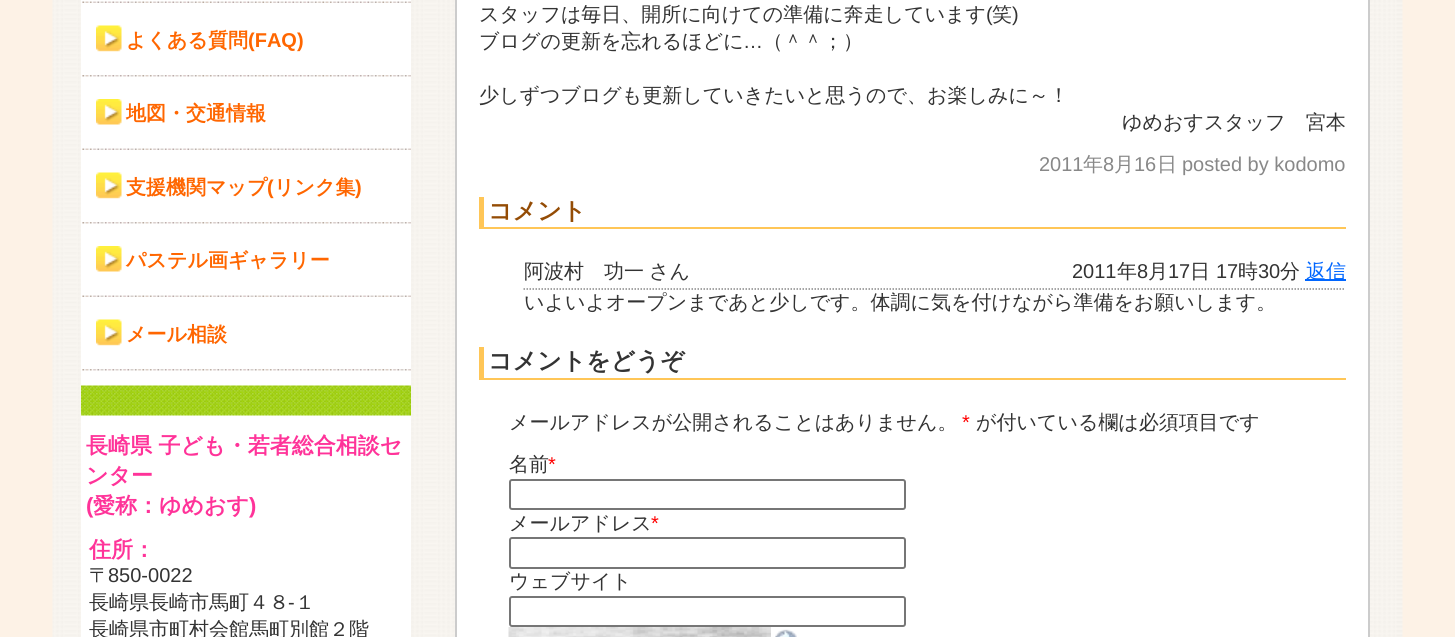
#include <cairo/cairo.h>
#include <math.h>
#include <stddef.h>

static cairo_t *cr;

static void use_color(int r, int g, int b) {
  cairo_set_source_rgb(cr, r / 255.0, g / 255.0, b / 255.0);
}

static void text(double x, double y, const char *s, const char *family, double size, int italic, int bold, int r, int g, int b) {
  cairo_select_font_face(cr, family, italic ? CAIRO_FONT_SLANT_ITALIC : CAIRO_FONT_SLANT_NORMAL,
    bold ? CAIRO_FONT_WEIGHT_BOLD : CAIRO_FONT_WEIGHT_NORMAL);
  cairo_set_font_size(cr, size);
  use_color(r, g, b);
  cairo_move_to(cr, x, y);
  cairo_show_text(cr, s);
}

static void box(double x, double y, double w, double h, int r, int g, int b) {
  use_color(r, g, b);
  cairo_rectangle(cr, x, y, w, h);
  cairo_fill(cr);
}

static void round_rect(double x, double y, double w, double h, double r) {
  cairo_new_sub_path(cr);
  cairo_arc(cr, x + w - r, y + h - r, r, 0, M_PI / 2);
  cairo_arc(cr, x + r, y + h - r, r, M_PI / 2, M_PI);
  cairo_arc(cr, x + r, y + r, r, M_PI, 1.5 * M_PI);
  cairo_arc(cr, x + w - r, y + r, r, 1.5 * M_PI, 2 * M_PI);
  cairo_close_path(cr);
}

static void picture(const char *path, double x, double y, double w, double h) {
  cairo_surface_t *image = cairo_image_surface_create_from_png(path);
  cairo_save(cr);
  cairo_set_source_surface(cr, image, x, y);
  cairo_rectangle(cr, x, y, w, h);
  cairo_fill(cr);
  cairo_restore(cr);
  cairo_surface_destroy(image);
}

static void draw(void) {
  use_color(253, 242, 230);
  cairo_paint(cr);
  picture("img_01.png", 52, 0, 1351, 637);
  box(81, 0, 330, 637, 255, 255, 255);
  picture("img_02.png", 82, 1, 329, 2);
  picture("img_03.png", 82, 75, 329, 2);
  picture("img_04.png", 96, 25, 26, 27);
  picture("img_02.png", 82, 148, 329, 2);
  picture("img_05.png", 96, 99, 26, 26);
  picture("img_03.png", 82, 222, 329, 2);
  picture("img_04.png", 96, 172, 26, 27);
  picture("img_02.png", 82, 295, 329, 2);
  picture("img_05.png", 96, 246, 26, 26);
  picture("img_03.png", 82, 369, 329, 2);
  picture("img_04.png", 96, 319, 26, 27);
  picture("img_06.png", 81, 385, 330, 31);
  box(457, 0, 911, 637, 255, 255, 255);
  box(1368, 0, 2, 637, 204, 204, 204);
  box(455, 0, 2, 637, 204, 204, 204);
  box(479, 227, 867, 2, 255, 198, 87);
  box(479, 197, 5, 31, 255, 198, 87);
  cairo_new_path(cr);
  cairo_move_to(cr, 523.5, 289);
  cairo_line_to(cr, 1345.5, 289);
  use_color(136, 136, 136);
  cairo_set_line_width(cr, 1.5);
  cairo_set_dash(cr, (double[]){1.5, 1.5}, 2, 0);
  cairo_stroke(cr);
  box(1305, 279, 41, 2, 0, 102, 255);
  box(479, 378, 867, 2, 255, 198, 87);
  box(479, 347, 5, 33, 255, 198, 87);
  round_rect(510, 480, 395, 29, 2);
  use_color(118, 118, 118);
  cairo_set_line_width(cr, 2);
  cairo_set_dash(cr, NULL, 0, 0);
  cairo_stroke(cr);
  round_rect(510, 538, 395, 30, 2);
  cairo_stroke(cr);
  round_rect(510, 597, 395, 29, 2);
  cairo_stroke(cr);
  picture("img_07.png", 508, 627, 263, 10);
  picture("img_08.png", 775, 629, 22, 8);
  text(126, 47, "よくある質問", "WenQuanYi Zen Hei", 20, 0, 1, 255, 102, 0);
  text(248, 47, "(FAQ)", "Liberation Sans", 20, 0, 1, 255, 102, 0);
  text(126, 120, "地図・交通情報", "WenQuanYi Zen Hei", 20, 0, 1, 255, 102, 0);
  text(126, 194, "支援機関マップ", "WenQuanYi Zen Hei", 20, 0, 1, 255, 102, 0);
  text(267, 194, "(", "Liberation Sans", 20, 0, 1, 255, 102, 0);
  text(274, 194, "リンク集", "WenQuanYi Zen Hei", 20, 0, 1, 255, 102, 0);
  text(355, 194, ")", "Liberation Sans", 20, 0, 1, 255, 102, 0);
  text(126, 267, "パステル画ギャラリー", "WenQuanYi Zen Hei", 20, 0, 1, 255, 102, 0);
  text(126, 341, "メール相談", "WenQuanYi Zen Hei", 20, 0, 1, 255, 102, 0);
  text(86, 453, "長崎県 子ども・若者総合相談セ", "WenQuanYi Zen Hei", 22, 0, 1, 255, 51, 153);
  text(86, 483, "ンター", "WenQuanYi Zen Hei", 22, 0, 1, 255, 51, 153);
  text(86, 513, "(", "Liberation Sans", 22, 0, 1, 255, 51, 153);
  text(93, 513, "愛称：ゆめおす", "WenQuanYi Zen Hei", 22, 0, 1, 255, 51, 153);
  text(249, 513, ")", "Liberation Sans", 22, 0, 1, 255, 51, 153);
  text(89, 557, "住所：", "WenQuanYi Zen Hei", 22, 0, 1, 255, 51, 153);
  text(89, 582, "〒", "WenQuanYi Zen Hei Medium", 20, 0, 0, 51, 51, 51);
  text(108, 582, "850-0022", "Liberation Sans", 20, 0, 0, 51, 51, 51);
  text(89, 609, "長崎県長崎市馬町４８", "WenQuanYi Zen Hei Medium", 20, 0, 0, 51, 51, 51);
  text(288, 609, "‐", "Liberation Sans", 20, 0, 0, 51, 51, 51);
  text(295, 609, "１", "WenQuanYi Zen Hei Medium", 20, 0, 0, 51, 51, 51);
  text(89, 636, "長崎県市町村会館馬町別館２階", "WenQuanYi Zen Hei Medium", 20, 0, 0, 51, 51, 51);
  text(479, 21, "スタッフは毎日、開所に向けての準備に奔走しています", "WenQuanYi Zen Hei Medium", 20, 0, 0, 51, 51, 51);
  text(986, 21, "(", "Liberation Sans", 20, 0, 0, 51, 51, 51);
  text(992, 21, "笑", "WenQuanYi Zen Hei Medium", 20, 0, 0, 51, 51, 51);
  text(1012, 21, ")", "Liberation Sans", 20, 0, 0, 51, 51, 51);
  text(479, 48, "ブログの更新を忘れるほどに", "WenQuanYi Zen Hei Medium", 20, 0, 0, 51, 51, 51);
  text(743, 48, "…", "Liberation Sans", 20, 0, 0, 51, 51, 51);
  text(763, 48, "（＾＾；）", "WenQuanYi Zen Hei Medium", 20, 0, 0, 51, 51, 51);
  text(479, 102, "少しずつブログも更新していきたいと思うので、お楽しみに～！", "WenQuanYi Zen Hei Medium", 20, 0, 0, 51, 51, 51);
  text(1122, 129, "ゆめおすスタッフ　宮本", "WenQuanYi Zen Hei Medium", 20, 0, 0, 51, 51, 51);
  text(1039, 171, "2011", "Liberation Sans", 20, 0, 0, 136, 136, 136);
  text(1083, 171, "年", "WenQuanYi Zen Hei Medium", 20, 0, 0, 136, 136, 136);
  text(1103, 171, "8", "Liberation Sans", 20, 0, 0, 136, 136, 136);
  text(1114, 171, "月", "WenQuanYi Zen Hei Medium", 20, 0, 0, 136, 136, 136);
  text(1134, 171, "16", "Liberation Sans", 20, 0, 0, 136, 136, 136);
  text(1157, 171, "日", "WenQuanYi Zen Hei Medium", 20, 0, 0, 136, 136, 136);
  text(1182, 171, "posted by kodomo", "Liberation Sans", 20, 0, 0, 136, 136, 136);
  text(488, 219, "コメント", "WenQuanYi Zen Hei", 24, 0, 1, 148, 76, 5);
  text(524, 278, "阿波村　功一", "WenQuanYi Zen Hei Medium", 20, 0, 0, 51, 51, 51);
  text(649, 278, "さん", "WenQuanYi Zen Hei Medium", 20, 0, 0, 51, 51, 51);
  text(1072, 278, "2011", "Liberation Sans", 20, 0, 0, 51, 51, 51);
  text(1117, 278, "年", "WenQuanYi Zen Hei Medium", 20, 0, 0, 51, 51, 51);
  text(1137, 278, "8", "Liberation Sans", 20, 0, 0, 51, 51, 51);
  text(1148, 278, "月", "WenQuanYi Zen Hei Medium", 20, 0, 0, 51, 51, 51);
  text(1168, 278, "17", "Liberation Sans", 20, 0, 0, 51, 51, 51);
  text(1190, 278, "日", "WenQuanYi Zen Hei Medium", 20, 0, 0, 51, 51, 51);
  text(1216, 278, "17", "Liberation Sans", 20, 0, 0, 51, 51, 51);
  text(1238, 278, "時", "WenQuanYi Zen Hei Medium", 20, 0, 0, 51, 51, 51);
  text(1258, 278, "30", "Liberation Sans", 20, 0, 0, 51, 51, 51);
  text(1280, 278, "分", "WenQuanYi Zen Hei Medium", 20, 0, 0, 51, 51, 51);
  text(1306, 278, "返信", "WenQuanYi Zen Hei Medium", 20, 0, 0, 0, 102, 255);
  text(524, 309, "いよいよオープンまであと少しです。体調に気を付けながら準備をお願いします。", "WenQuanYi Zen Hei Medium", 20, 0, 0, 51, 51, 51);
  text(488, 369, "コメントをどうぞ", "WenQuanYi Zen Hei", 24, 0, 1, 51, 51, 51);
  text(509, 429, "メールアドレスが公開されることはありません。", "WenQuanYi Zen Hei Medium", 20, 0, 0, 51, 51, 51);
  text(962, 429, "*", "Liberation Sans", 20, 0, 0, 255, 0, 0);
  text(976, 429, "が付いている欄は必須項目です", "WenQuanYi Zen Hei Medium", 20, 0, 0, 51, 51, 51);
  text(509, 471, "名前", "WenQuanYi Zen Hei Medium", 20, 0, 0, 51, 51, 51);
  text(548, 471, "*", "Liberation Sans", 20, 0, 0, 255, 0, 0);
  text(509, 530, "メールアドレス", "WenQuanYi Zen Hei Medium", 20, 0, 0, 51, 51, 51);
  text(651, 530, "*", "Liberation Sans", 20, 0, 0, 255, 0, 0);
  text(509, 588, "ウェブサイト", "WenQuanYi Zen Hei Medium", 20, 0, 0, 51, 51, 51);
}

int main(void) {
  cairo_surface_t *surface = cairo_image_surface_create(CAIRO_FORMAT_RGB24, 1455, 637);
  cr = cairo_create(surface);
  cairo_font_options_t *options = cairo_font_options_create();
  cairo_font_options_set_hint_metrics(options, CAIRO_HINT_METRICS_OFF);
  cairo_font_options_set_hint_style(options, CAIRO_HINT_STYLE_NONE);
  cairo_set_font_options(cr, options);
  cairo_set_miter_limit(cr, 4);
  draw();
  cairo_surface_write_to_png(surface, "out.png");
  cairo_font_options_destroy(options);
  cairo_destroy(cr);
  cairo_surface_destroy(surface);
  return 0;
}
